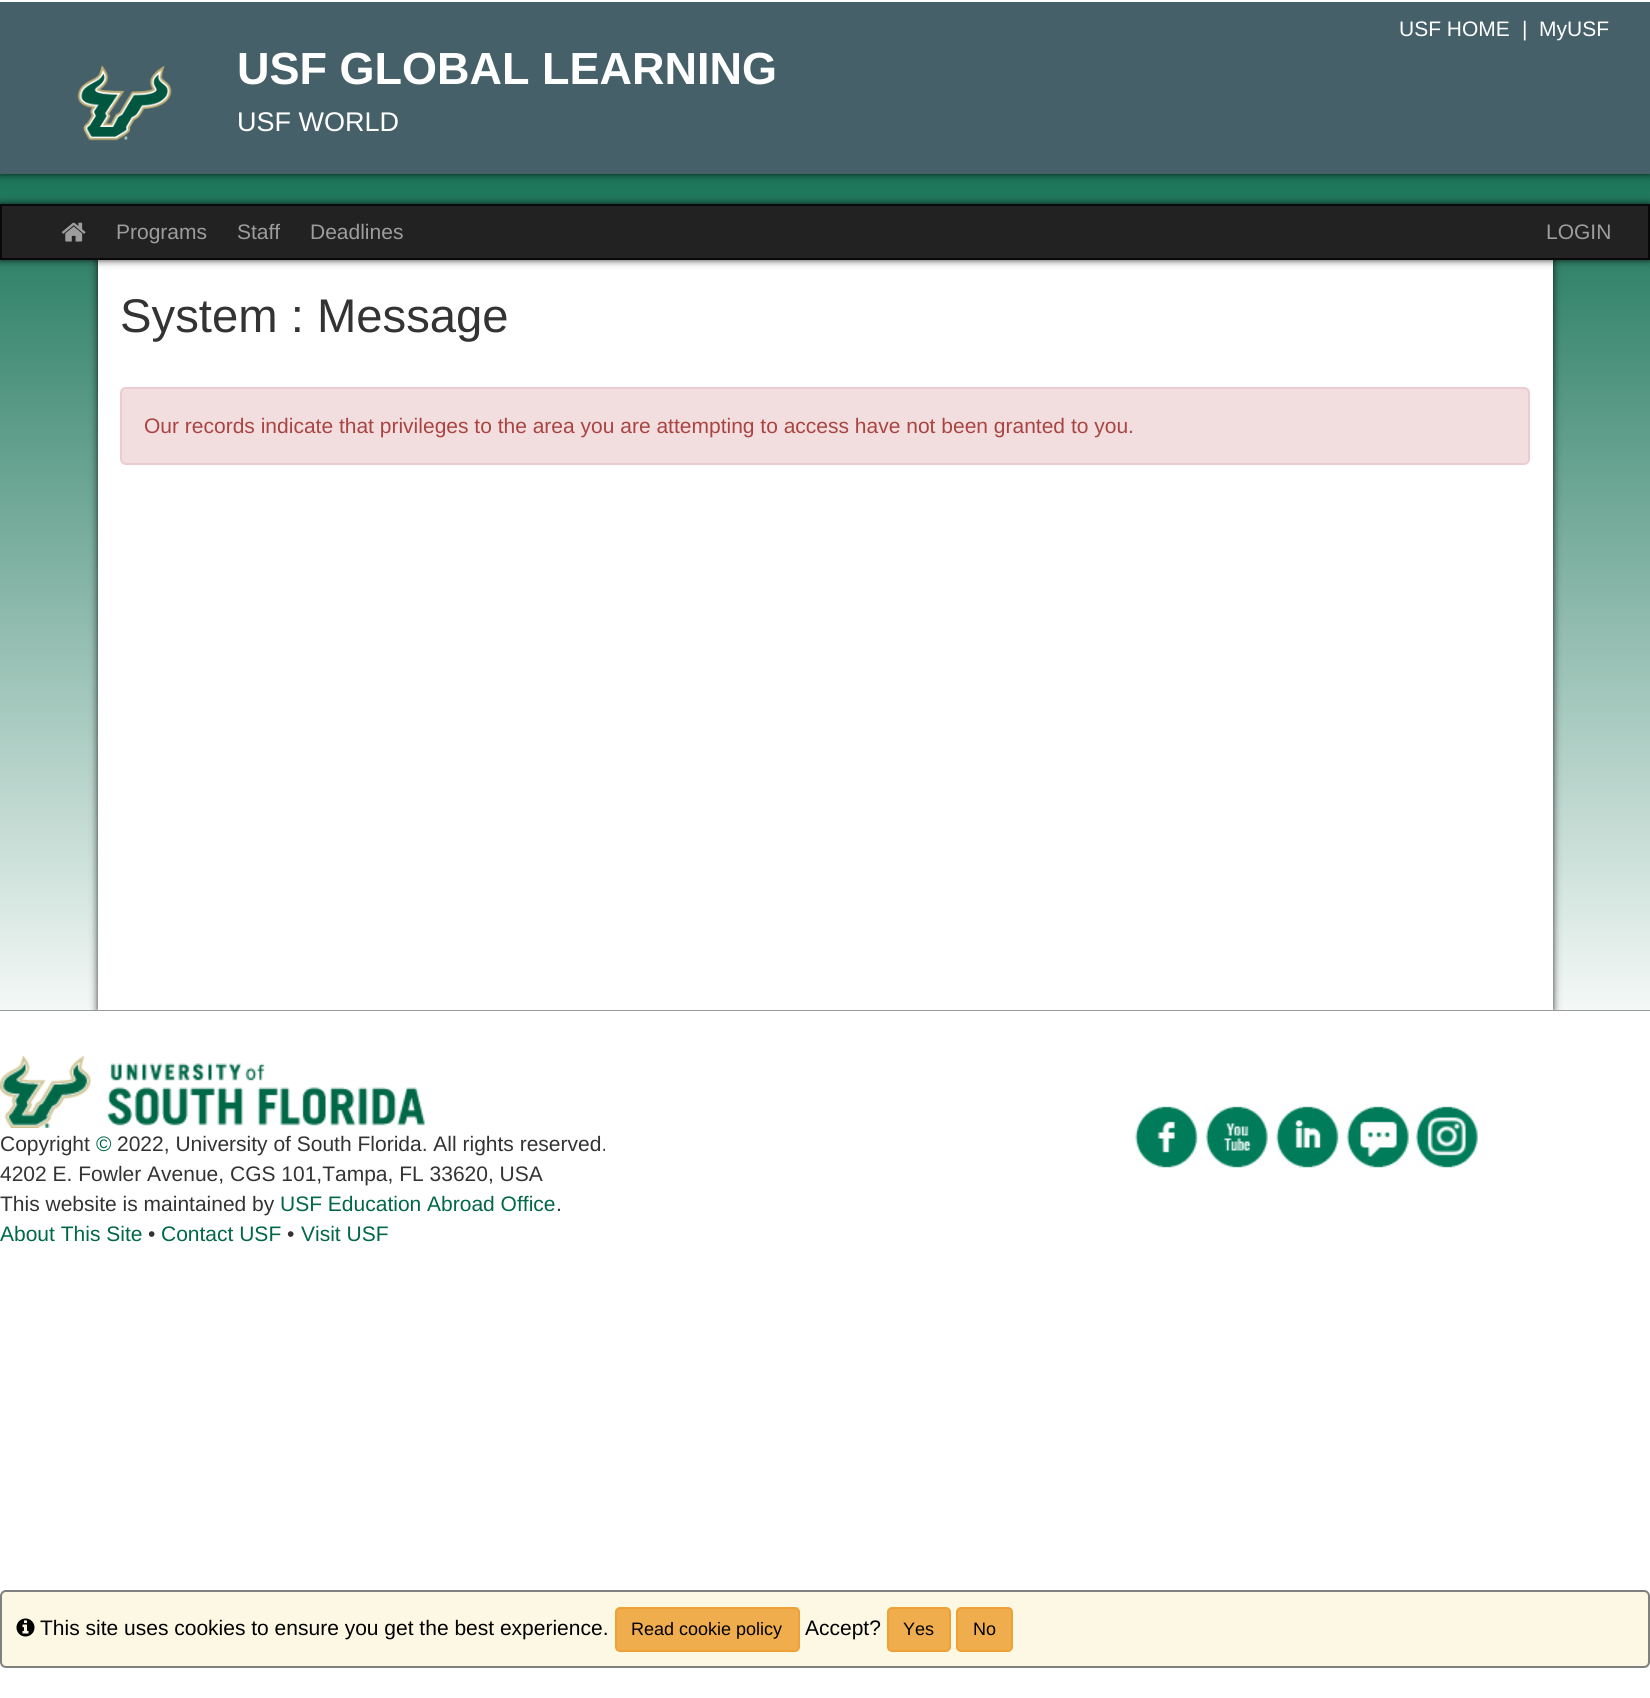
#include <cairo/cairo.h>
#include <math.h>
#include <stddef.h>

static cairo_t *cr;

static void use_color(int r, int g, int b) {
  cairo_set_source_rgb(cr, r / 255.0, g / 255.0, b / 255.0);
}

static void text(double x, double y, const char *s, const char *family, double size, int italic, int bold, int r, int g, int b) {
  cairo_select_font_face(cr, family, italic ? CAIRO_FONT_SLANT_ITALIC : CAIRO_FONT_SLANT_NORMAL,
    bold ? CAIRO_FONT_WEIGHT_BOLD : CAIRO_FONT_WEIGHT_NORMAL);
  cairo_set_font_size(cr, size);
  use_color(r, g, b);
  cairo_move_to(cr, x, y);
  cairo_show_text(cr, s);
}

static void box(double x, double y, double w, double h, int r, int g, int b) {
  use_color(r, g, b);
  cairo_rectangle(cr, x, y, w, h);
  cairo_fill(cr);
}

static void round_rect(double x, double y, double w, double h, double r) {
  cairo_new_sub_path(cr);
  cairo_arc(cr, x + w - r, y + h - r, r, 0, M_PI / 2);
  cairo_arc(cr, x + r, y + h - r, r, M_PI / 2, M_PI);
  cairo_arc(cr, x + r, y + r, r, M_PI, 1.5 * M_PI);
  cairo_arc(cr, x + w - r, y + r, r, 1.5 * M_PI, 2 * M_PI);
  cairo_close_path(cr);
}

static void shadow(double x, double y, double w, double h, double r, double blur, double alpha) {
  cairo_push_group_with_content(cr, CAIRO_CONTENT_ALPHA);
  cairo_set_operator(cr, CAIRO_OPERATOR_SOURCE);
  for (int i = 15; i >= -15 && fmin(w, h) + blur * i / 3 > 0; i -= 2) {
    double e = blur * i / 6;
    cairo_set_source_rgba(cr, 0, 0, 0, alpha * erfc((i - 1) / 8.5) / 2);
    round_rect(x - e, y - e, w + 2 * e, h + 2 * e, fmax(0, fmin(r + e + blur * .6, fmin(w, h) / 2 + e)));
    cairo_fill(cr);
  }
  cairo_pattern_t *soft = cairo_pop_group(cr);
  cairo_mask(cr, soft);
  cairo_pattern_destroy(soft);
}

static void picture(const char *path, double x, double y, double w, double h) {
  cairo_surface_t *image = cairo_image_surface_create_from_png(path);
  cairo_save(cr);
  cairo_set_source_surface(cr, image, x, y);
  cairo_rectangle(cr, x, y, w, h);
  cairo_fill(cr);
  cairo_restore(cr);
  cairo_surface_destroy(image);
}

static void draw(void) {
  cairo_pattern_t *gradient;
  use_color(255, 255, 255);
  cairo_paint(cr);
  gradient = cairo_pattern_create_linear(825, 0, 825, 1698);
  cairo_pattern_add_color_stop_rgba(gradient, 0.04, 0, 0.392, 0.271, 1);
  cairo_pattern_add_color_stop_rgba(gradient, 0.62, 1, 1, 1, 1);
  cairo_set_source(cr, gradient);
  cairo_pattern_destroy(gradient);
  cairo_rectangle(cr, 0, 174, 1650, 869);
  cairo_fill(cr);
  use_color(0, 0, 0);
  shadow(0, 0, 1650, 174, 0, 4, 0.8);
  box(0, 0, 1650, 2, 255, 255, 255);
  box(0, 2, 1650, 172, 70, 96, 105);
  picture("img_01.png", 77, 65, 95, 76);
  use_color(0, 0, 0);
  shadow(98, 260, 1455, 750, 0, 4, 0.8);
  box(98, 260, 1455, 750, 255, 255, 255);
  use_color(0, 0, 0);
  shadow(0, 204, 1650, 56, 0, 4, 0.8);
  use_color(34, 34, 34);
  cairo_rectangle(cr, 1, 205, 1648, 54);
  cairo_fill_preserve(cr);
  use_color(8, 8, 8);
  cairo_stroke(cr);
  picture("img_02.png", 61, 222, 25, 20);
  use_color(242, 222, 222);
  round_rect(121, 388, 1408, 76, 5);
  cairo_fill_preserve(cr);
  use_color(235, 204, 209);
  cairo_stroke(cr);
  box(0, 1010, 1650, 1, 153, 153, 153);
  box(0, 1011, 1650, 32, 255, 255, 255);
  picture("img_03.png", 0, 1056, 425, 72);
  picture("img_04.png", 1135, 1106, 63, 62);
  picture("img_05.png", 1205, 1106, 63, 62);
  picture("img_06.png", 1276, 1106, 63, 62);
  picture("img_07.png", 1346, 1106, 63, 62);
  picture("img_08.png", 1415, 1106, 63, 62);
  use_color(252, 248, 227);
  round_rect(1, 1591, 1648, 76, 5);
  cairo_fill_preserve(cr);
  use_color(128, 128, 128);
  cairo_stroke(cr);
  picture("img_09.png", 16, 1618, 19, 19);
  use_color(240, 173, 78);
  round_rect(616, 1608, 183, 43, 4);
  cairo_fill_preserve(cr);
  use_color(238, 162, 54);
  cairo_stroke(cr);
  use_color(240, 173, 78);
  round_rect(888, 1608, 62, 43, 4);
  cairo_fill_preserve(cr);
  use_color(238, 162, 54);
  cairo_stroke(cr);
  use_color(240, 173, 78);
  round_rect(957, 1608, 55, 43, 4);
  cairo_fill_preserve(cr);
  use_color(238, 162, 54);
  cairo_stroke(cr);
  text(1399, 36, "USF HOME", "Liberation Sans", 21, 0, 0, 255, 255, 255);
  text(1522, 36, "|", "Liberation Sans", 21, 0, 0, 255, 255, 255);
  text(1539, 36, "MyUSF", "Liberation Sans", 21, 0, 0, 255, 255, 255);
  text(237, 84, "USF GLOBAL LEARNING", "Liberation Sans", 45, 0, 1, 255, 255, 255);
  text(237, 131, "USF WORLD", "Liberation Sans", 27, 0, 0, 255, 255, 255);
  text(116, 239, "Programs", "Liberation Sans", 21, 0, 0, 157, 157, 157);
  text(237, 239, "Staff", "Liberation Sans", 21, 0, 0, 157, 157, 157);
  text(310, 239, "Deadlines", "Liberation Sans", 21, 0, 0, 157, 157, 157);
  text(1546, 239, "LOGIN", "Liberation Sans", 21, 0, 0, 157, 157, 157);
  text(120, 332, "System : Message", "Liberation Sans", 47.25, 0, 0, 51, 51, 51);
  text(144, 433, "Our records indicate that privileges to the area you are attempting to access have not been granted to you.", "Liberation Sans", 21, 0, 0, 169, 68, 66);
  text(0, 1151, "Copyright", "Liberation Sans", 21, 0, 0, 51, 51, 51);
  text(96, 1151, "©", "Liberation Sans", 21, 0, 0, 0, 103, 71);
  text(117, 1151, "2022, University of South Florida. All rights reserved.", "Liberation Sans", 21, 0, 0, 51, 51, 51);
  text(0, 1181, "4202 E. Fowler Avenue, CGS 101,Tampa, FL 33620, USA", "Liberation Sans", 21, 0, 0, 51, 51, 51);
  text(0, 1211, "This website is maintained by", "Liberation Sans", 21, 0, 0, 51, 51, 51);
  text(280, 1211, "USF Education Abroad Office", "Liberation Sans", 21, 0, 0, 0, 103, 71);
  text(556, 1211, ".", "Liberation Sans", 21, 0, 0, 51, 51, 51);
  text(0, 1241, "About This Site", "Liberation Sans", 21, 0, 0, 0, 103, 71);
  text(148, 1241, "•", "Liberation Sans", 21, 0, 0, 51, 51, 51);
  text(161, 1241, "Contact USF", "Liberation Sans", 21, 0, 0, 0, 103, 71);
  text(287, 1241, "•", "Liberation Sans", 21, 0, 0, 51, 51, 51);
  text(301, 1241, "Visit USF", "Liberation Sans", 21, 0, 0, 0, 103, 71);
  text(40, 1635, "This site uses cookies to ensure you get the best experience.", "Liberation Sans", 21, 0, 0, 0, 0, 0);
  text(631, 1635, "Read cookie policy", "Liberation Sans", 18, 0, 0, 0, 0, 0);
  text(805, 1635, "Accept?", "Liberation Sans", 21, 0, 0, 0, 0, 0);
  text(903, 1635, "Yes", "Liberation Sans", 18, 0, 0, 0, 0, 0);
  text(973, 1635, "No", "Liberation Sans", 18, 0, 0, 0, 0, 0);
}

int main(void) {
  cairo_surface_t *surface = cairo_image_surface_create(CAIRO_FORMAT_RGB24, 1650, 1698);
  cr = cairo_create(surface);
  cairo_font_options_t *options = cairo_font_options_create();
  cairo_font_options_set_hint_metrics(options, CAIRO_HINT_METRICS_OFF);
  cairo_font_options_set_hint_style(options, CAIRO_HINT_STYLE_NONE);
  cairo_set_font_options(cr, options);
  cairo_set_miter_limit(cr, 4);
  draw();
  cairo_surface_write_to_png(surface, "out.png");
  cairo_font_options_destroy(options);
  cairo_destroy(cr);
  cairo_surface_destroy(surface);
  return 0;
}
